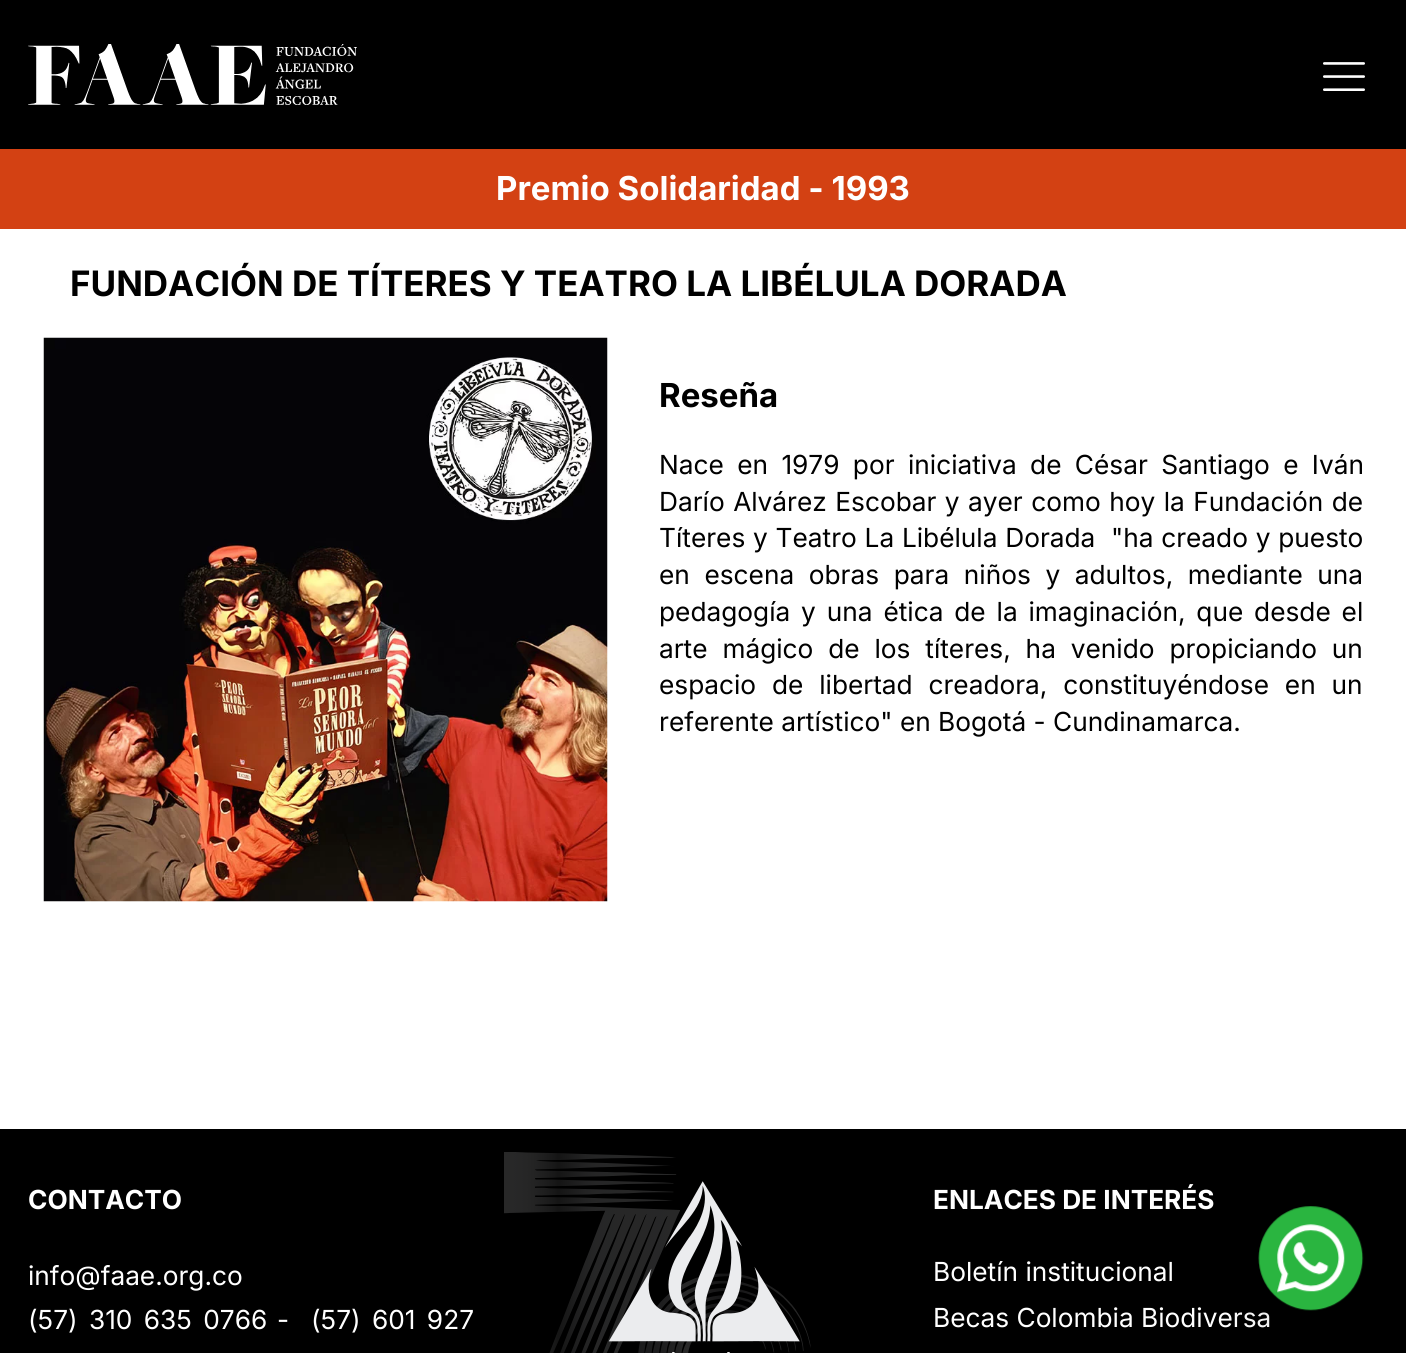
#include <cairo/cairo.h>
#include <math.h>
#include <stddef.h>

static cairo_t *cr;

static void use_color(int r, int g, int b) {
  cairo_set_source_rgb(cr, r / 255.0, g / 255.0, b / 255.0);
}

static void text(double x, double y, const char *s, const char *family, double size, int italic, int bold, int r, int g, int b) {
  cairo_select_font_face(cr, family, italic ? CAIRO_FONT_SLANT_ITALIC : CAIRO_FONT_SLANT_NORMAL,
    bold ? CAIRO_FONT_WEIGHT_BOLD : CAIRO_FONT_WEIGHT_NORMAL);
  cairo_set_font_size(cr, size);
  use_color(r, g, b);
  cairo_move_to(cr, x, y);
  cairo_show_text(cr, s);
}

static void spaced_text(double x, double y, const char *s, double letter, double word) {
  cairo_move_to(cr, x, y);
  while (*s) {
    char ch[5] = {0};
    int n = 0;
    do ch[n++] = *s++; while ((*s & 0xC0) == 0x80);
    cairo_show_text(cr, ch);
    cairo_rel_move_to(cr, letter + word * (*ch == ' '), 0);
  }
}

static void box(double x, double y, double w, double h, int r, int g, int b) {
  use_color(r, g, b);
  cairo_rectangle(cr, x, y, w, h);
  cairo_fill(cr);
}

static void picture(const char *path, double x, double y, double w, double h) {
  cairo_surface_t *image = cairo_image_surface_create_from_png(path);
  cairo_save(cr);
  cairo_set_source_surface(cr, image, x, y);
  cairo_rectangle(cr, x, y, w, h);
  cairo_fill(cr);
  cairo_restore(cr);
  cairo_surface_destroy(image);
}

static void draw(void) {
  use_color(255, 255, 255);
  cairo_paint(cr);
  box(0, 0, 1406, 149, 0, 0, 0);
  picture("img_01.png", 28, 44, 329, 61);
  picture("img_02.png", 1323, 62, 42, 29);
  box(0, 149, 1406, 80, 211, 65, 19);
  picture("img_03.png", 43, 337, 565, 565);
  box(0, 1129, 1406, 224, 0, 0, 0);
  picture("img_04.png", 504, 1152, 307, 201);
  picture("img_05.png", 608, 1181, 192, 172);
  text(496, 200, "Premio Solidaridad - 1993", "Inter", 33, 0, 1, 255, 255, 255);
  text(70, 296, "FUNDACIÓN DE TÍTERES Y TEATRO LA LIBÉLULA DORADA", "Inter", 35, 0, 1, 0, 0, 0);
  text(659, 407, "Reseña", "Inter", 33, 0, 1, 0, 0, 0);
  cairo_select_font_face(cr, "Inter", CAIRO_FONT_SLANT_NORMAL, CAIRO_FONT_WEIGHT_NORMAL);
  cairo_set_font_size(cr, 26.25);
  spaced_text(659, 474, "Nace en 1979 por iniciativa de César Santiago e Iván", 0, 6);
  spaced_text(659, 511, "Darío Alvárez Escobar y ayer como hoy la Fundación de", 0, 1.1);
  spaced_text(659, 547, "Títeres y Teatro La Libélula Dorada  \"ha creado y puesto", 0, 0.4);
  spaced_text(659, 584, "en escena obras para niños y adultos, mediante una", 0, 7.25);
  spaced_text(659, 621, "pedagogía y una ética de la imaginación, que desde el", 0, 3.5);
  spaced_text(659, 658, "arte mágico de los títeres, ha venido propiciando un", 0, 7.5);
  spaced_text(659, 694, "espacio de libertad creadora, constituyéndose en un", 0, 8.5);
  text(659, 731, "referente artístico\" en Bogotá - Cundinamarca.", "Inter", 26.25, 0, 0, 0, 0, 0);
  text(28, 1209, "CONTACTO", "Inter", 26.25, 0, 1, 255, 255, 255);
  text(28, 1285, "info@faae.org.co", "Inter", 26.25, 0, 0, 255, 255, 255);
  spaced_text(28, 1329, "(57) 310 635 0766", 0, 4);
  text(277, 1329, "-", "Inter", 26.25, 0, 0, 255, 255, 255);
  spaced_text(311, 1329, "(57) 601 927", 0, 4);
  text(933, 1209, "ENLACES DE INTERÉS", "Inter", 26.25, 0, 1, 255, 255, 255);
  text(933, 1281, "Boletín institucional", "Inter", 26.25, 0, 0, 255, 255, 255);
  text(933, 1327, "Becas Colombia Biodiversa", "Inter", 26.25, 0, 0, 255, 255, 255);
  picture("img_06.png", 1229, 1206, 135, 121);
}

int main(void) {
  cairo_surface_t *surface = cairo_image_surface_create(CAIRO_FORMAT_RGB24, 1406, 1353);
  cr = cairo_create(surface);
  cairo_font_options_t *options = cairo_font_options_create();
  cairo_font_options_set_hint_metrics(options, CAIRO_HINT_METRICS_OFF);
  cairo_font_options_set_hint_style(options, CAIRO_HINT_STYLE_NONE);
  cairo_set_font_options(cr, options);
  cairo_set_miter_limit(cr, 4);
  draw();
  cairo_surface_write_to_png(surface, "out.png");
  cairo_font_options_destroy(options);
  cairo_destroy(cr);
  cairo_surface_destroy(surface);
  return 0;
}
